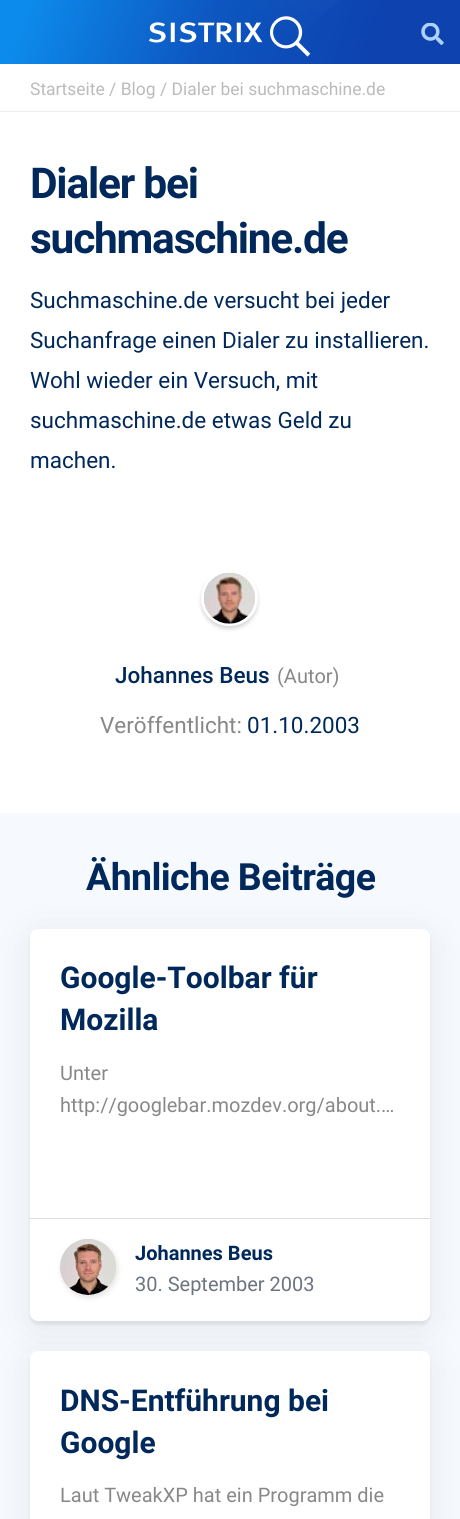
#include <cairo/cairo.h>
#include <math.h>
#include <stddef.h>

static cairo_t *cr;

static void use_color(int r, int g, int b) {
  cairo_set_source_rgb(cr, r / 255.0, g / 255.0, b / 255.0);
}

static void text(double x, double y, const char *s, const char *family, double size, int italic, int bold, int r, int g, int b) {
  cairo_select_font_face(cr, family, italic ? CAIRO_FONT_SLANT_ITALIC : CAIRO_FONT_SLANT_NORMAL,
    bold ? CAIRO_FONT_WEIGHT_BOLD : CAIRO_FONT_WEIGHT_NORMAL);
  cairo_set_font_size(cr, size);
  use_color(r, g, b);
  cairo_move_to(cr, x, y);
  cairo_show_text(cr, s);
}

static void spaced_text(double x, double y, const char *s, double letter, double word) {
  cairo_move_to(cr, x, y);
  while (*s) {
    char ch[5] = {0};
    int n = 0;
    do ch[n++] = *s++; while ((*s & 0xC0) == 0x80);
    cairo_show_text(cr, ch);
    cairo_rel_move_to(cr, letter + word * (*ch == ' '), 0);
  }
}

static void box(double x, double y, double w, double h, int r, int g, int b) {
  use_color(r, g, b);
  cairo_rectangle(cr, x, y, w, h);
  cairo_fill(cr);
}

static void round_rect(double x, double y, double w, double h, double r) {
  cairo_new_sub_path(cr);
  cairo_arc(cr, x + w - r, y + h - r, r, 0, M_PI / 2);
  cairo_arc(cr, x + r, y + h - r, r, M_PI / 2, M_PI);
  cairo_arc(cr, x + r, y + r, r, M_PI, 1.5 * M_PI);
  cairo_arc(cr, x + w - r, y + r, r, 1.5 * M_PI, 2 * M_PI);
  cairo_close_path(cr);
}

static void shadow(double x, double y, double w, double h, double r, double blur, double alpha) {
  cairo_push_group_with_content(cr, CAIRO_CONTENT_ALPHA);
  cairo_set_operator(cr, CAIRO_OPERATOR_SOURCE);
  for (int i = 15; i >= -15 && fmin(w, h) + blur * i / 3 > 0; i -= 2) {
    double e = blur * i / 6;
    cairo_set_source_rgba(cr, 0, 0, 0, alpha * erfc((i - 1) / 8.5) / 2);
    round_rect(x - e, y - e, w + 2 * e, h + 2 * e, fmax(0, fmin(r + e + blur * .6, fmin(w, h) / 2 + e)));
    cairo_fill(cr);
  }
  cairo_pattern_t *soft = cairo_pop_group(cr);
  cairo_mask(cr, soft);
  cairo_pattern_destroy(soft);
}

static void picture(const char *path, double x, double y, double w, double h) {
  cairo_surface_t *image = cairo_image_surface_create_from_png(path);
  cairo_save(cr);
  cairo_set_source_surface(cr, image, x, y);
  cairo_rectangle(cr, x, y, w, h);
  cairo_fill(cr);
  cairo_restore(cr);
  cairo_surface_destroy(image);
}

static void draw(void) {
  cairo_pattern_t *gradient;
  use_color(255, 255, 255);
  cairo_paint(cr);
  gradient = cairo_pattern_create_linear(61, -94, 385, 21);
  cairo_pattern_add_color_stop_rgba(gradient, 0, 0.051, 0.545, 0.925, 1);
  cairo_pattern_add_color_stop_rgba(gradient, 0.53, 0.051, 0.337, 0.753, 1);
  cairo_pattern_add_color_stop_rgba(gradient, 1, 0.051, 0.259, 0.686, 1);
  cairo_set_source(cr, gradient);
  cairo_pattern_destroy(gradient);
  cairo_rectangle(cr, 0, 0, 460, 64);
  cairo_fill(cr);
  gradient = cairo_pattern_create_linear(287, -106, 217, -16);
  cairo_pattern_add_color_stop_rgba(gradient, 0, 1, 1, 1, 0.06);
  cairo_pattern_add_color_stop_rgba(gradient, 0.48, 1, 1, 1, 0.02);
  cairo_pattern_add_color_stop_rgba(gradient, 1, 1, 1, 1, 0);
  cairo_set_source(cr, gradient);
  cairo_pattern_destroy(gradient);
  cairo_set_fill_rule(cr, CAIRO_FILL_RULE_EVEN_ODD);
  cairo_new_path(cr);
  cairo_move_to(cr, 8, 148);
  cairo_line_to(cr, -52, -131);
  cairo_line_to(cr, 331, -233);
  cairo_curve_to(cr, 331, -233, 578, -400, 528, -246);
  cairo_curve_to(cr, 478, -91, 145, 213, 8, 148);
  cairo_fill(cr);
  picture("img_01.png", 149, 16, 162, 41);
  picture("img_02.png", 421, 23, 23, 22);
  box(0, 111, 460, 1, 238, 238, 238);
  use_color(0, 0, 0);
  shadow(201, 573, 57, 56, 28, 2, 0.16);
  round_rect(202.5, 571.5, 54, 53, 26.5);
  use_color(255, 255, 255);
  cairo_set_line_width(cr, 3);
  cairo_stroke(cr);
  picture("img_03.png", 204, 572, 51, 52);
  box(0, 813, 460, 706, 246, 250, 254);
  use_color(0, 0, 0);
  shadow(30, 935, 400, 393, 8, 21, 0.07);
  shadow(30, 933, 400, 392, 8, 1.5, 0.07);
  use_color(255, 255, 255);
  round_rect(30, 929, 400, 392, 8);
  cairo_fill(cr);
  box(30, 1218, 400, 1, 221, 221, 221);
  use_color(0, 0, 0);
  shadow(61, 1241, 57, 57, 28.5, 2.5, 0.1);
  picture("img_04.png", 60, 1239, 56, 56);
  shadow(30, 1358, 400, 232, 8, 21, 0.07);
  shadow(30, 1355, 400, 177, 8, 1.5, 0.07);
  use_color(255, 255, 255);
  round_rect(30, 1351, 400, 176, 8);
  cairo_fill(cr);
  text(30, 95, "Startseite / Blog / Dialer bei suchmaschine.de", "Roboto", 17.5, 0, 0, 187, 187, 187);
  cairo_select_font_face(cr, "Roboto", CAIRO_FONT_SLANT_NORMAL, CAIRO_FONT_WEIGHT_BOLD);
  cairo_set_font_size(cr, 42.5);
  use_color(0, 40, 90);
  spaced_text(30, 198, "Dialer bei", -1.25, 0);
  spaced_text(30, 253, "suchmaschine.de", -1.25, 0);
  text(30, 308, "Suchmaschine.de versucht bei jeder", "Roboto", 22.5, 0, 0, 0, 40, 90);
  text(30, 348, "Suchanfrage einen Dialer zu installieren.", "Roboto", 22.5, 0, 0, 0, 40, 90);
  text(30, 388, "Wohl wieder ein Versuch, mit", "Roboto", 22.5, 0, 0, 0, 40, 90);
  text(30, 428, "suchmaschine.de etwas Geld zu", "Roboto", 22.5, 0, 0, 0, 40, 90);
  text(30, 468, "machen.", "Roboto", 22.5, 0, 0, 0, 40, 90);
  text(115, 683, "Johannes Beus", "Roboto Medium", 22.5, 0, 0, 0, 40, 90);
  text(277, 683, "(Autor)", "Roboto", 20, 0, 0, 136, 136, 136);
  text(100, 733, "Veröffentlicht:", "Roboto", 22.5, 0, 0, 136, 136, 136);
  text(247, 733, "01.10.2003", "Roboto", 22.5, 0, 0, 0, 40, 90);
  cairo_select_font_face(cr, "Roboto", CAIRO_FONT_SLANT_NORMAL, CAIRO_FONT_WEIGHT_BOLD);
  cairo_set_font_size(cr, 37.5);
  spaced_text(86, 890, "Ähnliche Beiträge", -0.6, 0);
  text(60, 988, "Google-Toolbar für", "Roboto", 30, 0, 1, 0, 40, 90);
  text(60, 1030, "Mozilla", "Roboto", 30, 0, 1, 0, 40, 90);
  text(60, 1080, "Unter", "Roboto", 20, 0, 0, 136, 136, 136);
  text(60, 1112, "http://googlebar.mozdev.org/about.…", "Roboto", 20, 0, 0, 136, 136, 136);
  text(135, 1260, "Johannes Beus", "Roboto", 20, 0, 1, 0, 40, 90);
  text(135, 1291, "30. September 2003", "Roboto", 20, 0, 0, 108, 117, 125);
  text(60, 1411, "DNS-Entführung bei", "Roboto", 30, 0, 1, 0, 40, 90);
  text(60, 1453, "Google", "Roboto", 30, 0, 1, 0, 40, 90);
  text(60, 1502, "Laut TweakXP hat ein Programm die", "Roboto", 20, 0, 0, 136, 136, 136);
}

int main(void) {
  cairo_surface_t *surface = cairo_image_surface_create(CAIRO_FORMAT_RGB24, 460, 1519);
  cr = cairo_create(surface);
  cairo_font_options_t *options = cairo_font_options_create();
  cairo_font_options_set_hint_metrics(options, CAIRO_HINT_METRICS_OFF);
  cairo_font_options_set_hint_style(options, CAIRO_HINT_STYLE_NONE);
  cairo_set_font_options(cr, options);
  cairo_set_miter_limit(cr, 4);
  draw();
  cairo_surface_write_to_png(surface, "out.png");
  cairo_font_options_destroy(options);
  cairo_destroy(cr);
  cairo_surface_destroy(surface);
  return 0;
}
